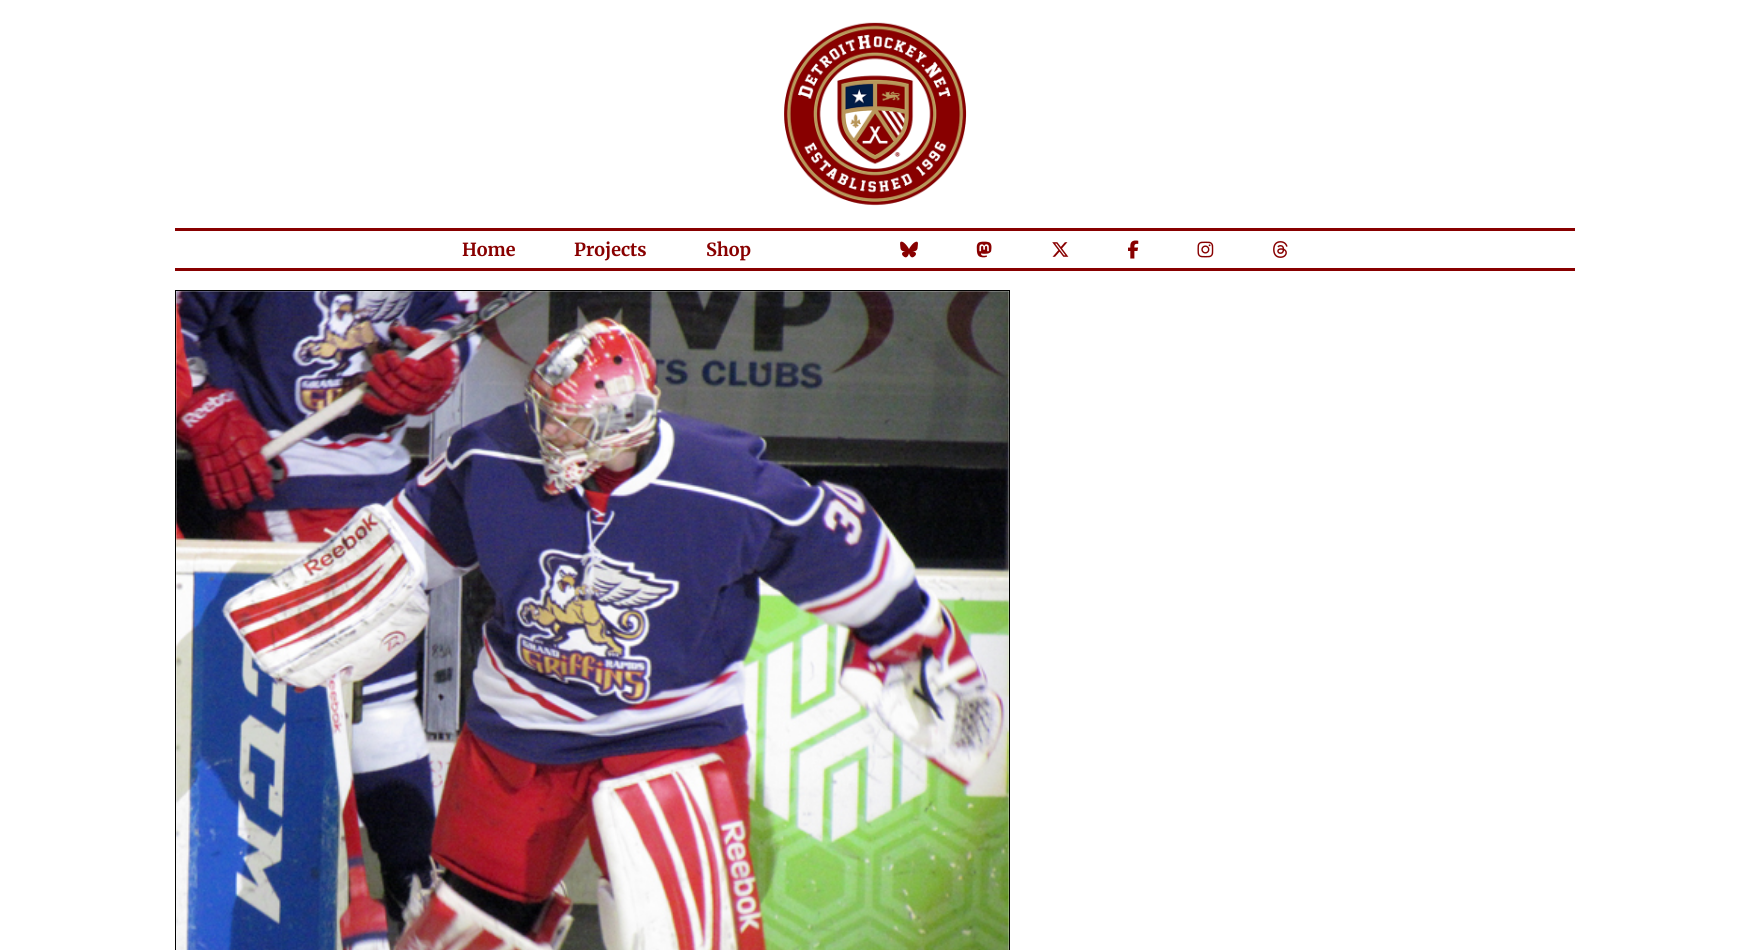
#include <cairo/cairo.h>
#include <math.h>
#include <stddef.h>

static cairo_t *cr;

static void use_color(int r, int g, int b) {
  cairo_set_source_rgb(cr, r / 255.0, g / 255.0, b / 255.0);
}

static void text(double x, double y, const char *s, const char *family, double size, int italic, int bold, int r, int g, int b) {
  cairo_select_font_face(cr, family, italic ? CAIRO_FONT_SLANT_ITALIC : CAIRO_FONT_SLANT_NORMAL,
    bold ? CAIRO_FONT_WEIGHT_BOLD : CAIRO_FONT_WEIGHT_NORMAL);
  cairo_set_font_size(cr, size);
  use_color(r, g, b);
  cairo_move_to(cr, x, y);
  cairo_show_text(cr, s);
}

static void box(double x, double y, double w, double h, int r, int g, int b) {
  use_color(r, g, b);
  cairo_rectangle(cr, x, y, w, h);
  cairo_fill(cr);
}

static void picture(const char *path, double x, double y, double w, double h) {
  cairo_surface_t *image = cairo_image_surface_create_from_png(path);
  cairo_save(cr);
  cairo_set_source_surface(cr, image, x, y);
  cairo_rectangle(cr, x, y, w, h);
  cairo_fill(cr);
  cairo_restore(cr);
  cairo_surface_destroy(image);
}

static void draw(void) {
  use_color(255, 255, 255);
  cairo_paint(cr);
  picture("img_01.png", 784, 22, 183, 184);
  box(175, 228, 1400, 3, 136, 0, 0);
  box(175, 268, 1400, 3, 136, 0, 0);
  picture("img_02.png", 900, 241, 18, 17);
  picture("img_03.png", 976, 241, 16, 17);
  picture("img_04.png", 1052, 242, 17, 15);
  picture("img_05.png", 1128, 240, 11, 19);
  picture("img_06.png", 1197, 241, 17, 17);
  picture("img_07.png", 1273, 241, 15, 17);
  cairo_rectangle(cr, 175.5, 290.5, 834, 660);
  use_color(0, 0, 0);
  cairo_set_line_width(cr, 1);
  cairo_stroke(cr);
  picture("img_08.png", 176, 291, 833, 659);
  text(462, 256, "Home", "Merriweather", 18, 0, 1, 136, 0, 0);
  text(574, 256, "Projects", "Merriweather", 18, 0, 1, 136, 0, 0);
  text(706, 256, "Shop", "Merriweather", 18, 0, 1, 136, 0, 0);
}

int main(void) {
  cairo_surface_t *surface = cairo_image_surface_create(CAIRO_FORMAT_RGB24, 1750, 950);
  cr = cairo_create(surface);
  cairo_font_options_t *options = cairo_font_options_create();
  cairo_font_options_set_hint_metrics(options, CAIRO_HINT_METRICS_OFF);
  cairo_font_options_set_hint_style(options, CAIRO_HINT_STYLE_NONE);
  cairo_set_font_options(cr, options);
  cairo_set_miter_limit(cr, 4);
  draw();
  cairo_surface_write_to_png(surface, "out.png");
  cairo_font_options_destroy(options);
  cairo_destroy(cr);
  cairo_surface_destroy(surface);
  return 0;
}
